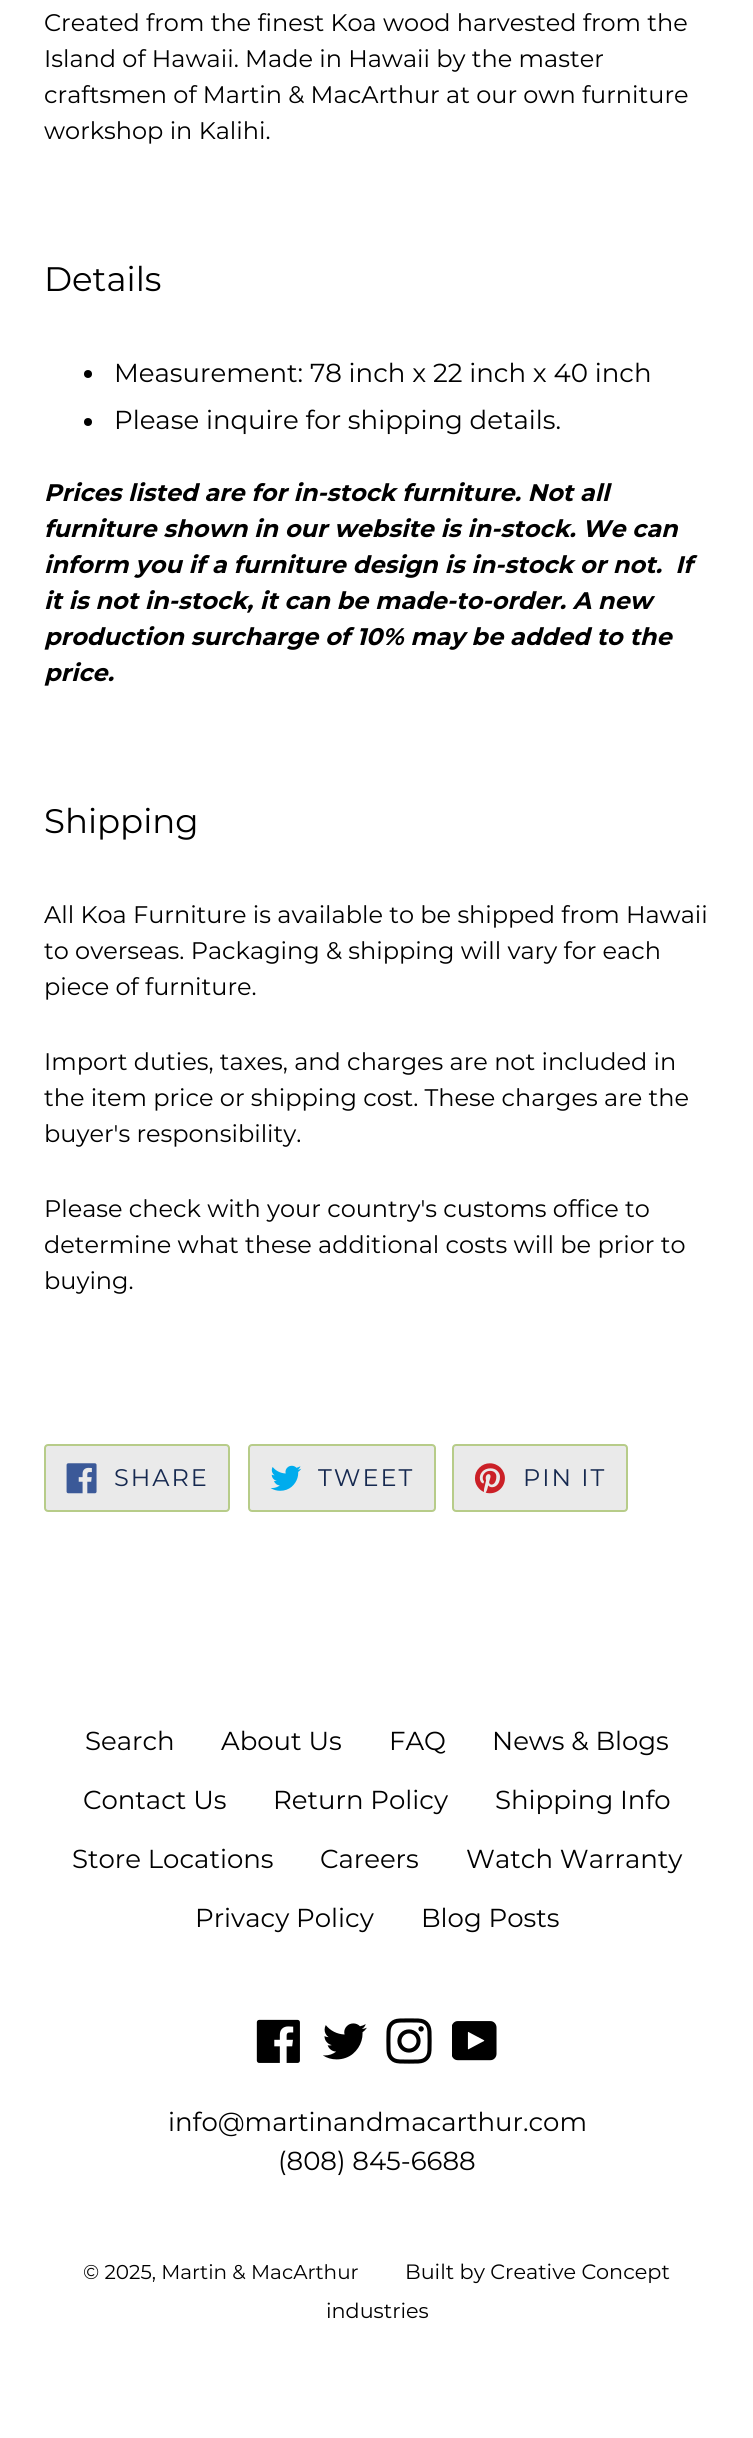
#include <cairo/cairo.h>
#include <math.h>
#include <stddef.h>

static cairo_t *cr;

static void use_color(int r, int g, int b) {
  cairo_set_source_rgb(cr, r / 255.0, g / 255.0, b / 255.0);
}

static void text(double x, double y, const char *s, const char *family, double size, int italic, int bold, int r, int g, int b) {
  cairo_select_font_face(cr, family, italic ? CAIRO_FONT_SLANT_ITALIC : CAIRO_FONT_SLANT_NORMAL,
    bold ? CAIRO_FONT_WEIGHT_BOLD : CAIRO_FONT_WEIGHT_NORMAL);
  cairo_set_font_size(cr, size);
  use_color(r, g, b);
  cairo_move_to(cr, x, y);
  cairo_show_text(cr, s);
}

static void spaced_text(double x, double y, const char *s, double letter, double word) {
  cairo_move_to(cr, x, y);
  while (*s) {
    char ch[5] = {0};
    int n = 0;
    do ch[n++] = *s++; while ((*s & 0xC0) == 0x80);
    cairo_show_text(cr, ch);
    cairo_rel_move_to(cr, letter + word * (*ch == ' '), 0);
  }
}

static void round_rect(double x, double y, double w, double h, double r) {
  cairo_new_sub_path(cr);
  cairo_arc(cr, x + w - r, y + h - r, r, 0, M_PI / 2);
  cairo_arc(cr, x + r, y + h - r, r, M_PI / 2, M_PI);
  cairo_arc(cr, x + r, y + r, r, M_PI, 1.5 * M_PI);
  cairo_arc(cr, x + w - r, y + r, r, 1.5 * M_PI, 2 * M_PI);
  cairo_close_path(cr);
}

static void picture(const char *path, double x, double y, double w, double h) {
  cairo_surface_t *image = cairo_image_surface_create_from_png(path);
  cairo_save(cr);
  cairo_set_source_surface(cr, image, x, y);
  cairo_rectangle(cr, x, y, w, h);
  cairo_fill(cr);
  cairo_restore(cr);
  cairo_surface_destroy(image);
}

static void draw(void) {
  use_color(255, 255, 255);
  cairo_paint(cr);
  use_color(0, 0, 0);
  cairo_arc(cr, 88, 374, 4, 0, 2 * M_PI);
  cairo_fill(cr);
  cairo_arc(cr, 88, 422, 4, 0, 2 * M_PI);
  cairo_fill(cr);
  use_color(234, 234, 234);
  round_rect(45, 1445, 184, 66, 3);
  cairo_fill_preserve(cr);
  use_color(183, 204, 137);
  cairo_stroke(cr);
  picture("img_01.png", 66, 1463, 31, 31);
  use_color(234, 234, 234);
  round_rect(249, 1445, 186, 66, 3);
  cairo_fill_preserve(cr);
  use_color(183, 204, 137);
  cairo_stroke(cr);
  picture("img_02.png", 270, 1465, 32, 26);
  use_color(234, 234, 234);
  round_rect(453, 1445, 174, 66, 3);
  cairo_fill_preserve(cr);
  use_color(183, 204, 137);
  cairo_stroke(cr);
  picture("img_03.png", 474, 1463, 31, 31);
  picture("img_04.png", 256, 2019, 44, 44);
  picture("img_05.png", 323, 2023, 44, 37);
  picture("img_06.png", 386, 2018, 46, 46);
  picture("img_07.png", 452, 2021, 45, 40);
  text(44, 31, "Created from the finest Koa wood harvested from the", "Montserrat Thin", 24, 0, 0, 0, 0, 0);
  text(44, 67, "Island of Hawaii. Made in Hawaii by the master", "Montserrat Thin", 24, 0, 0, 0, 0, 0);
  text(44, 103, "craftsmen of Martin & MacArthur at our own furniture", "Montserrat Thin", 24, 0, 0, 0, 0, 0);
  text(44, 139, "workshop in Kalihi.", "Montserrat Thin", 24, 0, 0, 0, 0, 0);
  text(44, 291, "Details", "Montserrat Thin", 34, 0, 0, 0, 0, 0);
  text(114, 382, "Measurement: 78 inch x 22 inch x 40 inch", "Montserrat Thin", 26, 0, 0, 0, 0, 0);
  text(114, 429, "Please inquire for shipping details.", "Montserrat Thin", 26, 0, 0, 0, 0, 0);
  text(44, 501, "Prices listed are for in-stock furniture. Not all", "Montserrat", 24, 1, 1, 0, 0, 0);
  text(44, 537, "furniture shown in our website is in-stock. We can", "Montserrat", 24, 1, 1, 0, 0, 0);
  text(44, 573, "inform you if a furniture design is in-stock or not.  If", "Montserrat", 24, 1, 1, 0, 0, 0);
  text(44, 609, "it is not in-stock, it can be made-to-order. A new", "Montserrat", 24, 1, 1, 0, 0, 0);
  text(44, 645, "production surcharge of 10% may be added to the", "Montserrat", 24, 1, 1, 0, 0, 0);
  text(44, 681, "price.", "Montserrat", 24, 1, 1, 0, 0, 0);
  text(44, 833, "Shipping", "Montserrat Thin", 34, 0, 0, 0, 0, 0);
  text(44, 923, "All Koa Furniture is available to be shipped from Hawaii", "Montserrat Thin", 24, 0, 0, 0, 0, 0);
  text(44, 959, "to overseas. Packaging & shipping will vary for each", "Montserrat Thin", 24, 0, 0, 0, 0, 0);
  text(44, 995, "piece of furniture.", "Montserrat Thin", 24, 0, 0, 0, 0, 0);
  text(44, 1070, "Import duties, taxes, and charges are not included in", "Montserrat Thin", 24, 0, 0, 0, 0, 0);
  text(44, 1106, "the item price or shipping cost. These charges are the", "Montserrat Thin", 24, 0, 0, 0, 0, 0);
  text(44, 1142, "buyer's responsibility.", "Montserrat Thin", 24, 0, 0, 0, 0, 0);
  text(44, 1217, "Please check with your country's customs office to", "Montserrat Thin", 24, 0, 0, 0, 0, 0);
  text(44, 1253, "determine what these additional costs will be prior to", "Montserrat Thin", 24, 0, 0, 0, 0, 0);
  text(44, 1289, "buying.", "Montserrat Thin", 24, 0, 0, 0, 0, 0);
  use_color(22, 41, 80);
  spaced_text(114, 1486, "SHARE", 2, 0);
  spaced_text(318, 1486, "TWEET", 2, 0);
  spaced_text(523, 1486, "PIN IT", 2, 0);
  text(85, 1750, "Search", "Montserrat Thin", 26, 0, 0, 0, 0, 0);
  text(221, 1750, "About Us", "Montserrat Thin", 26, 0, 0, 0, 0, 0);
  text(389, 1750, "FAQ", "Montserrat Thin", 26, 0, 0, 0, 0, 0);
  text(492, 1750, "News & Blogs", "Montserrat Thin", 26, 0, 0, 0, 0, 0);
  text(83, 1809, "Contact Us", "Montserrat Thin", 26, 0, 0, 0, 0, 0);
  text(273, 1809, "Return Policy", "Montserrat Thin", 26, 0, 0, 0, 0, 0);
  text(495, 1809, "Shipping Info", "Montserrat Thin", 26, 0, 0, 0, 0, 0);
  text(72, 1868, "Store Locations", "Montserrat Thin", 26, 0, 0, 0, 0, 0);
  text(320, 1868, "Careers", "Montserrat Thin", 26, 0, 0, 0, 0, 0);
  text(466, 1868, "Watch Warranty", "Montserrat Thin", 26, 0, 0, 0, 0, 0);
  text(195, 1927, "Privacy Policy", "Montserrat Thin", 26, 0, 0, 0, 0, 0);
  text(421, 1927, "Blog Posts", "Montserrat Thin", 26, 0, 0, 0, 0, 0);
  text(168, 2131, "info@martinandmacarthur.com", "Montserrat Thin", 26, 0, 0, 0, 0, 0);
  text(278, 2170, "(808) 845-6688", "Montserrat Thin", 26, 0, 0, 0, 0, 0);
  text(83, 2279, "© 2025, Martin & MacArthur", "Montserrat Thin", 20, 0, 0, 0, 0, 0);
  text(405, 2279, "Built by Creative Concept", "Montserrat Thin", 20.75, 0, 0, 0, 0, 0);
  text(326, 2318, "industries", "Montserrat Thin", 20.75, 0, 0, 0, 0, 0);
}

int main(void) {
  cairo_surface_t *surface = cairo_image_surface_create(CAIRO_FORMAT_RGB24, 753, 2438);
  cr = cairo_create(surface);
  cairo_font_options_t *options = cairo_font_options_create();
  cairo_font_options_set_hint_metrics(options, CAIRO_HINT_METRICS_OFF);
  cairo_font_options_set_hint_style(options, CAIRO_HINT_STYLE_NONE);
  cairo_set_font_options(cr, options);
  cairo_set_miter_limit(cr, 4);
  draw();
  cairo_surface_write_to_png(surface, "out.png");
  cairo_font_options_destroy(options);
  cairo_destroy(cr);
  cairo_surface_destroy(surface);
  return 0;
}
